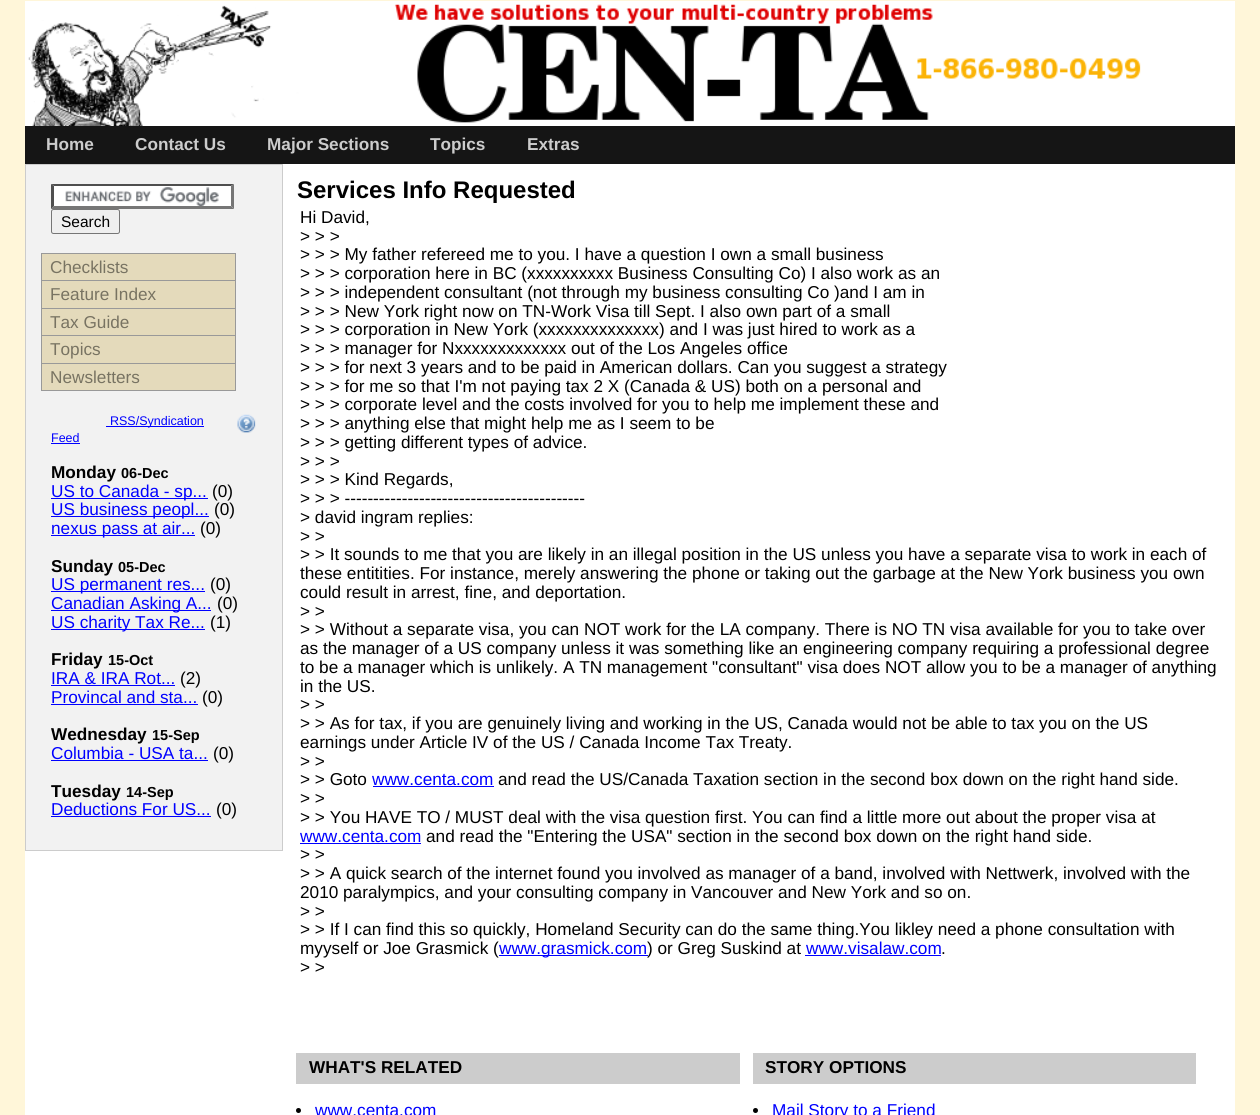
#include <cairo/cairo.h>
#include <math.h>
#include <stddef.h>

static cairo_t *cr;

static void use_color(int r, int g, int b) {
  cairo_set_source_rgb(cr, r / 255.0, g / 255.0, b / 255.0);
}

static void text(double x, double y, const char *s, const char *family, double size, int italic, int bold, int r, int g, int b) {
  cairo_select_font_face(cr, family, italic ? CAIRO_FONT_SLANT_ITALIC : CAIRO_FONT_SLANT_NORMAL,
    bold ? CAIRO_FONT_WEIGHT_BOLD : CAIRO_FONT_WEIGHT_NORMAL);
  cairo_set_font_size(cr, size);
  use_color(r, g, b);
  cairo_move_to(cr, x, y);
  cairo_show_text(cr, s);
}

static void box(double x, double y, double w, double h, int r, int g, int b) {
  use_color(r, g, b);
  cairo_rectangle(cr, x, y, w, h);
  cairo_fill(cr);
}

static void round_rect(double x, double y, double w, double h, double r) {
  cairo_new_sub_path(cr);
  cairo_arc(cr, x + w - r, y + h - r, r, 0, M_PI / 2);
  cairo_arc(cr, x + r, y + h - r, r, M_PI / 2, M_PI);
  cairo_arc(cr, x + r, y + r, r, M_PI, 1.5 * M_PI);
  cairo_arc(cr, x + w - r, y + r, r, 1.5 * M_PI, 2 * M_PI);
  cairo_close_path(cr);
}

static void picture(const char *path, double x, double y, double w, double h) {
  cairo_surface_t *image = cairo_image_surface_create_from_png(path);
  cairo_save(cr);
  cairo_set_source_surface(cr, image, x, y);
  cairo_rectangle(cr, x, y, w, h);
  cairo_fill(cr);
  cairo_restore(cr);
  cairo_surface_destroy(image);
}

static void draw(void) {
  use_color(255, 246, 217);
  cairo_paint(cr);
  box(25, 1, 1210, 1114, 255, 255, 255);
  picture("img_01.png", 28, 4, 1113, 122);
  box(25, 126, 1210, 38, 21, 21, 21);
  use_color(242, 242, 242);
  cairo_rectangle(cr, 25.5, 164.5, 257, 686);
  cairo_fill_preserve(cr);
  use_color(204, 204, 204);
  cairo_set_line_width(cr, 1);
  cairo_stroke(cr);
  box(51, 184, 183, 25, 255, 255, 255);
  picture("img_02.png", 65, 187, 154, 19);
  use_color(79, 79, 79);
  cairo_new_path(cr);
  cairo_move_to(cr, 51, 184);
  cairo_line_to(cr, 234, 184);
  cairo_line_to(cr, 231, 186);
  cairo_line_to(cr, 54, 186);
  cairo_close_path(cr);
  cairo_fill(cr);
  use_color(118, 118, 118);
  cairo_new_path(cr);
  cairo_move_to(cr, 234, 184);
  cairo_line_to(cr, 234, 209);
  cairo_line_to(cr, 231, 206);
  cairo_line_to(cr, 231, 186);
  cairo_close_path(cr);
  cairo_fill(cr);
  cairo_new_path(cr);
  cairo_move_to(cr, 234, 209);
  cairo_line_to(cr, 51, 209);
  cairo_line_to(cr, 54, 206);
  cairo_line_to(cr, 231, 206);
  cairo_close_path(cr);
  cairo_fill(cr);
  use_color(79, 79, 79);
  cairo_new_path(cr);
  cairo_move_to(cr, 51, 209);
  cairo_line_to(cr, 51, 184);
  cairo_line_to(cr, 54, 186);
  cairo_line_to(cr, 54, 206);
  cairo_close_path(cr);
  cairo_fill(cr);
  use_color(239, 239, 239);
  round_rect(51.5, 209.5, 68, 24, 2);
  cairo_fill_preserve(cr);
  use_color(118, 118, 118);
  cairo_stroke(cr);
  box(41, 390, 195, 1, 153, 153, 153);
  box(42, 254, 193, 26, 228, 218, 187);
  box(41, 253, 195, 1, 153, 153, 153);
  box(235, 253, 1, 27, 153, 153, 153);
  box(41, 253, 1, 27, 153, 153, 153);
  box(42, 281, 193, 27, 228, 218, 187);
  box(41, 280, 195, 1, 153, 153, 153);
  box(235, 280, 1, 28, 153, 153, 153);
  box(41, 280, 1, 28, 153, 153, 153);
  box(42, 309, 193, 26, 228, 218, 187);
  box(41, 308, 195, 1, 153, 153, 153);
  box(235, 308, 1, 27, 153, 153, 153);
  box(41, 308, 1, 27, 153, 153, 153);
  box(42, 336, 193, 27, 228, 218, 187);
  box(41, 335, 195, 1, 153, 153, 153);
  box(235, 335, 1, 28, 153, 153, 153);
  box(41, 335, 1, 28, 153, 153, 153);
  box(42, 364, 193, 26, 228, 218, 187);
  box(41, 363, 195, 1, 153, 153, 153);
  box(235, 363, 1, 27, 153, 153, 153);
  box(41, 363, 1, 27, 153, 153, 153);
  box(106, 426, 98, 1, 0, 0, 255);
  box(51, 443, 29, 1, 0, 0, 255);
  picture("img_03.png", 237, 414, 19, 19);
  box(51, 498, 157, 1, 0, 0, 255);
  box(51, 516, 158, 1, 0, 0, 255);
  box(51, 535, 144, 1, 0, 0, 255);
  box(51, 591, 154, 1, 0, 0, 255);
  box(51, 610, 160, 1, 0, 0, 255);
  box(51, 629, 154, 1, 0, 0, 255);
  box(51, 685, 124, 1, 0, 0, 255);
  box(51, 704, 147, 1, 0, 0, 255);
  box(51, 760, 157, 1, 0, 0, 255);
  box(51, 816, 160, 1, 0, 0, 255);
  box(373, 786, 121, 1, 0, 0, 255);
  box(300, 843, 121, 1, 0, 0, 255);
  box(499, 955, 149, 1, 0, 0, 255);
  box(805, 955, 136, 1, 0, 0, 255);
  box(296, 1053, 444, 31, 204, 204, 204);
  use_color(0, 0, 0);
  cairo_arc(cr, 298.5, 1110.5, 2.5, 0, 2 * M_PI);
  cairo_fill(cr);
  box(753, 1053, 443, 31, 204, 204, 204);
  use_color(0, 0, 0);
  cairo_arc(cr, 755.5, 1110.5, 2.5, 0, 2 * M_PI);
  cairo_fill(cr);
  text(46, 150, "Home", "Liberation Sans", 17.2, 0, 1, 204, 204, 204);
  text(135, 150, "Contact Us", "Liberation Sans", 17.2, 0, 1, 204, 204, 204);
  text(267, 150, "Major Sections", "Liberation Sans", 17.2, 0, 1, 204, 204, 204);
  text(430, 150, "Topics", "Liberation Sans", 17.2, 0, 1, 204, 204, 204);
  text(527, 150, "Extras", "Liberation Sans", 17.2, 0, 1, 204, 204, 204);
  text(61, 227, "Search", "Liberation Sans", 15.5, 0, 0, 0, 0, 0);
  text(50, 273, "Checklists", "Liberation Sans", 17.2, 0, 0, 120, 115, 98);
  text(50, 300, "Feature Index", "Liberation Sans", 17.2, 0, 0, 120, 115, 98);
  text(50, 328, "Tax Guide", "Liberation Sans", 17.2, 0, 0, 120, 115, 98);
  text(50, 355, "Topics", "Liberation Sans", 17.2, 0, 0, 120, 115, 98);
  text(50, 383, "Newsletters", "Liberation Sans", 17.2, 0, 0, 120, 115, 98);
  text(110, 425, "RSS/Syndication", "Liberation Sans", 12.5, 0, 0, 0, 0, 255);
  text(51, 442, "Feed", "Liberation Sans", 12.5, 0, 0, 0, 0, 255);
  text(51, 478, "Monday", "Liberation Sans", 17.2, 0, 1, 0, 0, 0);
  text(121, 478, "06-Dec", "Liberation Sans", 14.5, 0, 1, 0, 0, 0);
  text(51, 497, "US to Canada - sp...", "Liberation Sans", 17.2, 0, 0, 0, 0, 255);
  text(212, 497, "(0)", "Liberation Sans", 17.2, 0, 0, 0, 0, 0);
  text(51, 515, "US business peopl...", "Liberation Sans", 17.2, 0, 0, 0, 0, 255);
  text(214, 515, "(0)", "Liberation Sans", 17.2, 0, 0, 0, 0, 0);
  text(51, 534, "nexus pass at air...", "Liberation Sans", 17.2, 0, 0, 0, 0, 255);
  text(200, 534, "(0)", "Liberation Sans", 17.2, 0, 0, 0, 0, 0);
  text(51, 572, "Sunday", "Liberation Sans", 17.2, 0, 1, 0, 0, 0);
  text(118, 572, "05-Dec", "Liberation Sans", 14.5, 0, 1, 0, 0, 0);
  text(51, 590, "US permanent res...", "Liberation Sans", 17.2, 0, 0, 0, 0, 255);
  text(210, 590, "(0)", "Liberation Sans", 17.2, 0, 0, 0, 0, 0);
  text(51, 609, "Canadian Asking A...", "Liberation Sans", 17.2, 0, 0, 0, 0, 255);
  text(217, 609, "(0)", "Liberation Sans", 17.2, 0, 0, 0, 0, 0);
  text(51, 628, "US charity Tax Re...", "Liberation Sans", 17.2, 0, 0, 0, 0, 255);
  text(210, 628, "(1)", "Liberation Sans", 17.2, 0, 0, 0, 0, 0);
  text(51, 665, "Friday", "Liberation Sans", 17.2, 0, 1, 0, 0, 0);
  text(108, 665, "15-Oct", "Liberation Sans", 14.5, 0, 1, 0, 0, 0);
  text(51, 684, "IRA & IRA Rot...", "Liberation Sans", 17.2, 0, 0, 0, 0, 255);
  text(180, 684, "(2)", "Liberation Sans", 17.2, 0, 0, 0, 0, 0);
  text(51, 703, "Provincal and sta...", "Liberation Sans", 17.2, 0, 0, 0, 0, 255);
  text(202, 703, "(0)", "Liberation Sans", 17.2, 0, 0, 0, 0, 0);
  text(51, 740, "Wednesday", "Liberation Sans", 17.2, 0, 1, 0, 0, 0);
  text(152, 740, "15-Sep", "Liberation Sans", 14.5, 0, 1, 0, 0, 0);
  text(51, 759, "Columbia - USA ta...", "Liberation Sans", 17.2, 0, 0, 0, 0, 255);
  text(213, 759, "(0)", "Liberation Sans", 17.2, 0, 0, 0, 0, 0);
  text(51, 797, "Tuesday", "Liberation Sans", 17.2, 0, 1, 0, 0, 0);
  text(126, 797, "14-Sep", "Liberation Sans", 14.5, 0, 1, 0, 0, 0);
  text(51, 815, "Deductions For US...", "Liberation Sans", 17.2, 0, 0, 0, 0, 255);
  text(216, 815, "(0)", "Liberation Sans", 17.2, 0, 0, 0, 0, 0);
  text(297, 198, "Services Info Requested", "Liberation Sans", 24, 0, 1, 0, 0, 0);
  text(300, 223, "Hi David,", "Liberation Sans", 17.2, 0, 0, 0, 0, 0);
  text(300, 242, "> > >", "Liberation Sans", 17.2, 0, 0, 0, 0, 0);
  text(300, 260, "> > > My father refereed me to you. I have a question I own a small business", "Liberation Sans", 17.2, 0, 0, 0, 0, 0);
  text(300, 279, "> > > corporation here in BC (xxxxxxxxxx Business Consulting Co) I also work as an", "Liberation Sans", 17.2, 0, 0, 0, 0, 0);
  text(300, 298, "> > > independent consultant (not through my business consulting Co )and I am in", "Liberation Sans", 17.2, 0, 0, 0, 0, 0);
  text(300, 317, "> > > New York right now on TN-Work Visa till Sept. I also own part of a small", "Liberation Sans", 17.2, 0, 0, 0, 0, 0);
  text(300, 335, "> > > corporation in New York (xxxxxxxxxxxxxx) and I was just hired to work as a", "Liberation Sans", 17.2, 0, 0, 0, 0, 0);
  text(300, 354, "> > > manager for Nxxxxxxxxxxxxx out of the Los Angeles office", "Liberation Sans", 17.2, 0, 0, 0, 0, 0);
  text(300, 373, "> > > for next 3 years and to be paid in American dollars. Can you suggest a strategy", "Liberation Sans", 17.2, 0, 0, 0, 0, 0);
  text(300, 392, "> > > for me so that I'm not paying tax 2 X (Canada & US) both on a personal and", "Liberation Sans", 17.2, 0, 0, 0, 0, 0);
  text(300, 410, "> > > corporate level and the costs involved for you to help me implement these and", "Liberation Sans", 17.2, 0, 0, 0, 0, 0);
  text(300, 429, "> > > anything else that might help me as I seem to be", "Liberation Sans", 17.2, 0, 0, 0, 0, 0);
  text(300, 448, "> > > getting different types of advice.", "Liberation Sans", 17.2, 0, 0, 0, 0, 0);
  text(300, 467, "> > >", "Liberation Sans", 17.2, 0, 0, 0, 0, 0);
  text(300, 485, "> > > Kind Regards,", "Liberation Sans", 17.2, 0, 0, 0, 0, 0);
  text(300, 504, "> > > ------------------------------------------", "Liberation Sans", 17.2, 0, 0, 0, 0, 0);
  text(300, 523, "> david ingram replies:", "Liberation Sans", 17.2, 0, 0, 0, 0, 0);
  text(300, 542, "> >", "Liberation Sans", 17.2, 0, 0, 0, 0, 0);
  text(300, 560, "> > It sounds to me that you are likely in an illegal position in the US unless you have a separate visa to work in each of", "Liberation Sans", 17.2, 0, 0, 0, 0, 0);
  text(300, 579, "these entitities. For instance, merely answering the phone or taking out the garbage at the New York business you own", "Liberation Sans", 17.2, 0, 0, 0, 0, 0);
  text(300, 598, "could result in arrest, fine, and deportation.", "Liberation Sans", 17.2, 0, 0, 0, 0, 0);
  text(300, 617, "> >", "Liberation Sans", 17.2, 0, 0, 0, 0, 0);
  text(300, 635, "> > Without a separate visa, you can NOT work for the LA company. There is NO TN visa available for you to take over", "Liberation Sans", 17.2, 0, 0, 0, 0, 0);
  text(300, 654, "as the manager of a US company unless it was something like an engineering company requiring a professional degree", "Liberation Sans", 17.2, 0, 0, 0, 0, 0);
  text(300, 673, "to be a manager which is unlikely. A TN management \"consultant\" visa does NOT allow you to be a manager of anything", "Liberation Sans", 17.2, 0, 0, 0, 0, 0);
  text(300, 692, "in the US.", "Liberation Sans", 17.2, 0, 0, 0, 0, 0);
  text(300, 710, "> >", "Liberation Sans", 17.2, 0, 0, 0, 0, 0);
  text(300, 729, "> > As for tax, if you are genuinely living and working in the US, Canada would not be able to tax you on the US", "Liberation Sans", 17.2, 0, 0, 0, 0, 0);
  text(300, 748, "earnings under Article IV of the US / Canada Income Tax Treaty.", "Liberation Sans", 17.2, 0, 0, 0, 0, 0);
  text(300, 767, "> >", "Liberation Sans", 17.2, 0, 0, 0, 0, 0);
  text(300, 785, "> > Goto", "Liberation Sans", 17.2, 0, 0, 0, 0, 0);
  text(372, 785, "www.centa.com", "Liberation Sans", 17.2, 0, 0, 0, 0, 255);
  text(498, 785, "and read the US/Canada Taxation section in the second box down on the right hand side.", "Liberation Sans", 17.2, 0, 0, 0, 0, 0);
  text(300, 804, "> >", "Liberation Sans", 17.2, 0, 0, 0, 0, 0);
  text(300, 823, "> > You HAVE TO / MUST deal with the visa question first.", "Liberation Sans", 17.2, 0, 0, 0, 0, 0);
  text(752, 823, "You can find a little more out about the proper visa at", "Liberation Sans", 17.2, 0, 0, 0, 0, 0);
  text(300, 842, "www.centa.com", "Liberation Sans", 17.2, 0, 0, 0, 0, 255);
  text(426, 842, "and read the \"Entering the USA\" section in the second box down on the right hand side.", "Liberation Sans", 17.2, 0, 0, 0, 0, 0);
  text(300, 860, "> >", "Liberation Sans", 17.2, 0, 0, 0, 0, 0);
  text(300, 879, "> > A quick search of the internet found you involved as manager of a band, involved with Nettwerk, involved with the", "Liberation Sans", 17.2, 0, 0, 0, 0, 0);
  text(300, 898, "2010 paralympics, and your consulting company in Vancouver and New York and so on.", "Liberation Sans", 17.2, 0, 0, 0, 0, 0);
  text(300, 917, "> >", "Liberation Sans", 17.2, 0, 0, 0, 0, 0);
  text(300, 935, "> > If I can find this so quickly, Homeland Security can do the same thing.You likley need a phone consultation with", "Liberation Sans", 17.2, 0, 0, 0, 0, 0);
  text(300, 954, "myyself or Joe Grasmick (", "Liberation Sans", 17.2, 0, 0, 0, 0, 0);
  text(499, 954, "www.grasmick.com", "Liberation Sans", 17.2, 0, 0, 0, 0, 255);
  text(647, 954, ") or Greg Suskind at", "Liberation Sans", 17.2, 0, 0, 0, 0, 0);
  text(806, 954, "www.visalaw.com", "Liberation Sans", 17.2, 0, 0, 0, 0, 255);
  text(941, 954, ".", "Liberation Sans", 17.2, 0, 0, 0, 0, 0);
  text(300, 973, "> >", "Liberation Sans", 17.2, 0, 0, 0, 0, 0);
  text(309, 1073, "WHAT'S RELATED", "Liberation Sans", 17.2, 0, 1, 0, 0, 0);
  text(315, 1116, "www.centa.com", "Liberation Sans", 17.2, 0, 0, 0, 0, 255);
  text(765, 1073, "STORY OPTIONS", "Liberation Sans", 17.2, 0, 1, 0, 0, 0);
  text(772, 1116, "Mail Story to a Friend", "Liberation Sans", 17.2, 0, 0, 0, 0, 255);
}

int main(void) {
  cairo_surface_t *surface = cairo_image_surface_create(CAIRO_FORMAT_RGB24, 1260, 1115);
  cr = cairo_create(surface);
  cairo_font_options_t *options = cairo_font_options_create();
  cairo_font_options_set_hint_metrics(options, CAIRO_HINT_METRICS_OFF);
  cairo_font_options_set_hint_style(options, CAIRO_HINT_STYLE_NONE);
  cairo_set_font_options(cr, options);
  cairo_set_miter_limit(cr, 4);
  draw();
  cairo_surface_write_to_png(surface, "out.png");
  cairo_font_options_destroy(options);
  cairo_destroy(cr);
  cairo_surface_destroy(surface);
  return 0;
}
